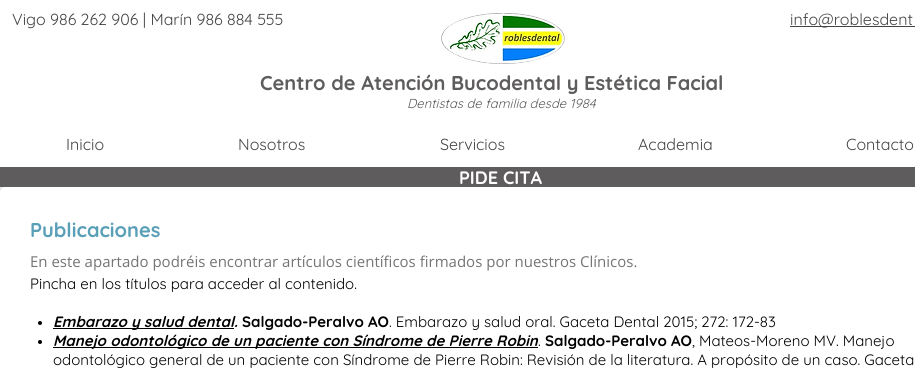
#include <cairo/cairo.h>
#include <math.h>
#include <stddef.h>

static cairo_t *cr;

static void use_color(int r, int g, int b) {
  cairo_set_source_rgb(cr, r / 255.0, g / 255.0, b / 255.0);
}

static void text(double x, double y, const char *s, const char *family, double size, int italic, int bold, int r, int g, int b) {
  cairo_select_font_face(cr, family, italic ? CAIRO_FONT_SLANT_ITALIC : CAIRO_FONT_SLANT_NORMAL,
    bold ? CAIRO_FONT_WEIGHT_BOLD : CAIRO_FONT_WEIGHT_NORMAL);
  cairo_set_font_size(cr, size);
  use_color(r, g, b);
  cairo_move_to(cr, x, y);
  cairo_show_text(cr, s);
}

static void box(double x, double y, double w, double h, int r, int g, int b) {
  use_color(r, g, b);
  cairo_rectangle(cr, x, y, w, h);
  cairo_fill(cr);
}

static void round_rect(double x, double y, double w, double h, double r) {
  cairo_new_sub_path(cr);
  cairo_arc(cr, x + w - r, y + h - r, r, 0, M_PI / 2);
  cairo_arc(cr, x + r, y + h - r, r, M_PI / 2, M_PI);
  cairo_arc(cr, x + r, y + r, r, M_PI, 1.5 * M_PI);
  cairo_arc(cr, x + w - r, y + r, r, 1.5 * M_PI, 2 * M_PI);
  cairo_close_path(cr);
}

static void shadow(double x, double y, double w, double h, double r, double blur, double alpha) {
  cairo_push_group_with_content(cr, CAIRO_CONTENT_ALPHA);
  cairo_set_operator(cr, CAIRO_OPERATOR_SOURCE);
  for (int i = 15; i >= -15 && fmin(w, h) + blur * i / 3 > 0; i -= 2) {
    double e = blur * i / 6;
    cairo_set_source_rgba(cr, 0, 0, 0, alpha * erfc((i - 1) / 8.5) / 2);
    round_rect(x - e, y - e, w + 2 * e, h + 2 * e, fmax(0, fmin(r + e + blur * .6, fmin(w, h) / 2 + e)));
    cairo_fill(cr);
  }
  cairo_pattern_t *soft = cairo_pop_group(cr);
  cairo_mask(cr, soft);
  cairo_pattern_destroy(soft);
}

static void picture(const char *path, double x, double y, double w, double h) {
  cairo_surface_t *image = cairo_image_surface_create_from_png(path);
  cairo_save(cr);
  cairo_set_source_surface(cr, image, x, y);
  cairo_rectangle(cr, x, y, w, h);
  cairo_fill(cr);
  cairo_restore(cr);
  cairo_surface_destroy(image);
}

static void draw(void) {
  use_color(255, 255, 255);
  cairo_paint(cr);
  picture("img_01.png", 441, 13, 124, 51);
  box(790, 26, 125, 1, 68, 68, 68);
  use_color(0, 0, 0);
  shadow(0, 188, 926, 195, 5, 2, 0.6);
  box(0, 167, 915, 20, 94, 92, 92);
  use_color(255, 255, 255);
  round_rect(0.5, 187.5, 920, 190, 4.5);
  cairo_fill_preserve(cr);
  cairo_set_line_width(cr, 1);
  cairo_stroke(cr);
  use_color(0, 0, 0);
  cairo_arc(cr, 40, 323, 2, 0, 2 * M_PI);
  cairo_fill(cr);
  box(53, 328, 181, 1, 0, 0, 0);
  cairo_arc(cr, 40, 342, 2, 0, 2 * M_PI);
  cairo_fill(cr);
  box(53, 347, 485, 1, 0, 0, 0);
  text(12, 25, "Vigo 986 262 906 | Marín 986 884 555", "Quicksand", 16, 0, 0, 68, 68, 68);
  text(790, 25, "info@roblesdent", "Quicksand", 16, 0, 0, 68, 68, 68);
  text(260, 90, "Centro de Atención Bucodental y Estética Facial", "Quicksand", 20, 0, 1, 94, 92, 92);
  text(407, 108, "Dentistas de familia desde 1984", "Quicksand", 13, 1, 0, 94, 92, 92);
  text(66, 150, "Inicio", "Quicksand", 16, 0, 0, 68, 68, 68);
  text(238, 150, "Nosotros", "Quicksand", 16, 0, 0, 68, 68, 68);
  text(440, 150, "Servicios", "Quicksand", 16, 0, 0, 68, 68, 68);
  text(638, 150, "Academia", "Quicksand", 16, 0, 0, 68, 68, 68);
  text(846, 150, "Contacto", "Quicksand", 16, 0, 0, 68, 68, 68);
  text(459, 184, "PIDE CITA", "Quicksand", 18, 0, 1, 255, 255, 255);
  text(30, 237, "Publicaciones", "Quicksand", 20, 0, 1, 89, 159, 183);
  text(30, 267, "En este apartado podréis encontrar artículos científicos firmados por nuestros Clínicos.", "Open Sans", 15, 0, 0, 117, 117, 117);
  text(30, 289, "Pincha en los títulos para acceder al contenido.", "Quicksand", 15, 0, 0, 0, 0, 0);
  text(53, 327, "Embarazo y salud dental.", "Quicksand", 15, 1, 1, 0, 0, 0);
  text(242, 327, "Salgado-Peralvo AO", "Quicksand", 15, 0, 1, 0, 0, 0);
  text(389, 327, ". Embarazo y salud oral. Gaceta Dental 2015; 272: 172-83", "Quicksand", 15, 0, 0, 0, 0, 0);
  text(53, 346, "Manejo odontológico de un paciente con Síndrome de Pierre Robin", "Quicksand", 15, 1, 1, 0, 0, 0);
  text(545, 346, "Salgado-Peralvo AO", "Quicksand", 15, 0, 1, 0, 0, 0);
  text(692, 346, ", Mateos-Moreno MV. Manejo", "Quicksand", 15, 0, 0, 0, 0, 0);
  text(538, 346, ".", "Quicksand", 15, 0, 0, 0, 0, 0);
  text(53, 365, "odontológico general de un paciente con Síndrome de Pierre Robin: Revisión de la literatura. A propósito de un caso. Gaceta", "Quicksand", 15, 0, 0, 0, 0, 0);
}

int main(void) {
  cairo_surface_t *surface = cairo_image_surface_create(CAIRO_FORMAT_RGB24, 915, 372);
  cr = cairo_create(surface);
  cairo_font_options_t *options = cairo_font_options_create();
  cairo_font_options_set_hint_metrics(options, CAIRO_HINT_METRICS_OFF);
  cairo_font_options_set_hint_style(options, CAIRO_HINT_STYLE_NONE);
  cairo_set_font_options(cr, options);
  cairo_set_miter_limit(cr, 4);
  draw();
  cairo_surface_write_to_png(surface, "out.png");
  cairo_font_options_destroy(options);
  cairo_destroy(cr);
  cairo_surface_destroy(surface);
  return 0;
}
